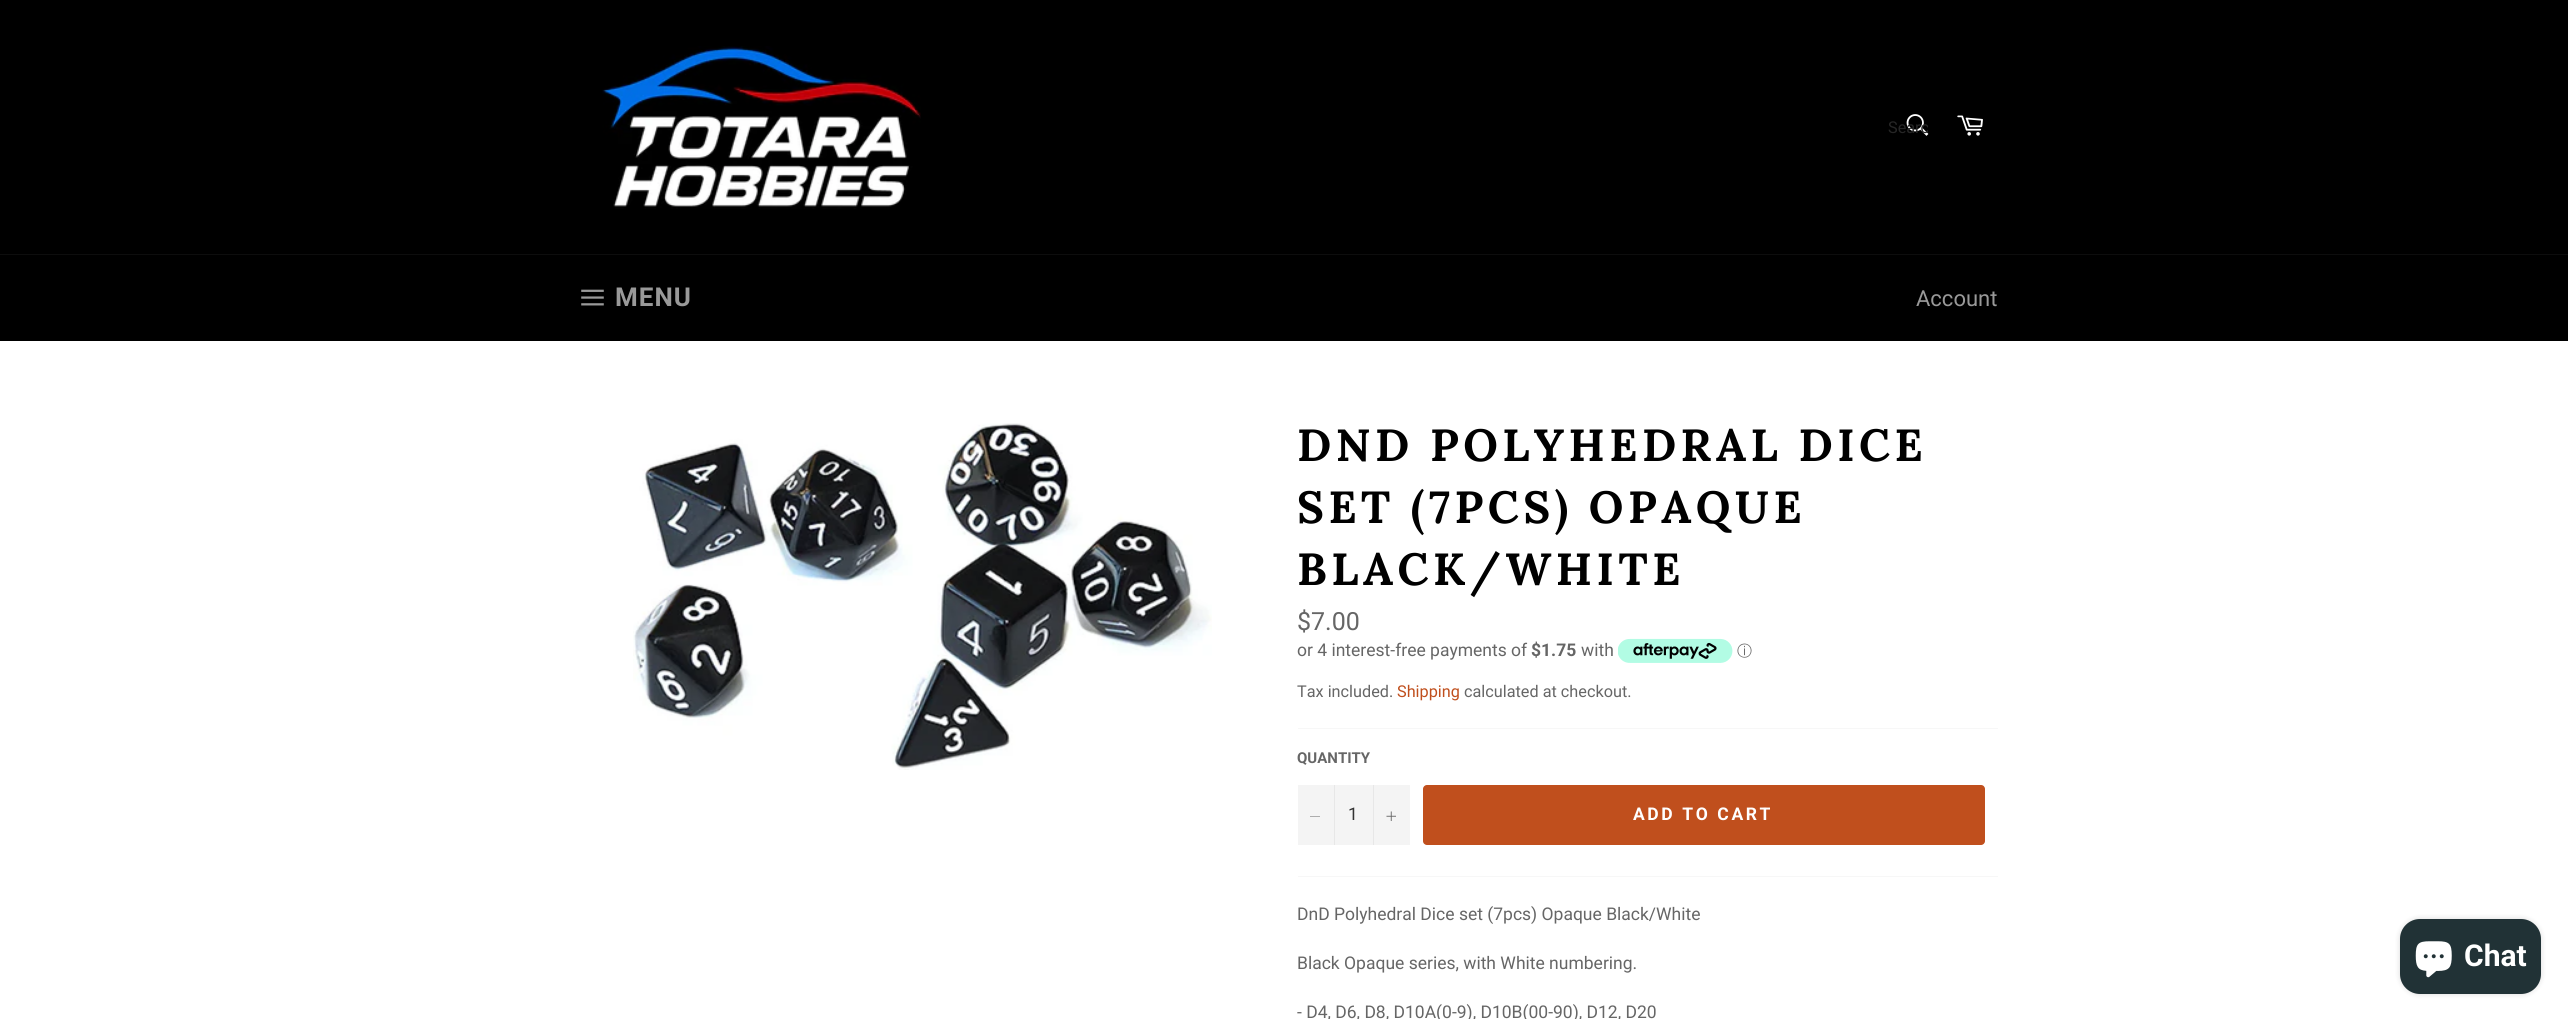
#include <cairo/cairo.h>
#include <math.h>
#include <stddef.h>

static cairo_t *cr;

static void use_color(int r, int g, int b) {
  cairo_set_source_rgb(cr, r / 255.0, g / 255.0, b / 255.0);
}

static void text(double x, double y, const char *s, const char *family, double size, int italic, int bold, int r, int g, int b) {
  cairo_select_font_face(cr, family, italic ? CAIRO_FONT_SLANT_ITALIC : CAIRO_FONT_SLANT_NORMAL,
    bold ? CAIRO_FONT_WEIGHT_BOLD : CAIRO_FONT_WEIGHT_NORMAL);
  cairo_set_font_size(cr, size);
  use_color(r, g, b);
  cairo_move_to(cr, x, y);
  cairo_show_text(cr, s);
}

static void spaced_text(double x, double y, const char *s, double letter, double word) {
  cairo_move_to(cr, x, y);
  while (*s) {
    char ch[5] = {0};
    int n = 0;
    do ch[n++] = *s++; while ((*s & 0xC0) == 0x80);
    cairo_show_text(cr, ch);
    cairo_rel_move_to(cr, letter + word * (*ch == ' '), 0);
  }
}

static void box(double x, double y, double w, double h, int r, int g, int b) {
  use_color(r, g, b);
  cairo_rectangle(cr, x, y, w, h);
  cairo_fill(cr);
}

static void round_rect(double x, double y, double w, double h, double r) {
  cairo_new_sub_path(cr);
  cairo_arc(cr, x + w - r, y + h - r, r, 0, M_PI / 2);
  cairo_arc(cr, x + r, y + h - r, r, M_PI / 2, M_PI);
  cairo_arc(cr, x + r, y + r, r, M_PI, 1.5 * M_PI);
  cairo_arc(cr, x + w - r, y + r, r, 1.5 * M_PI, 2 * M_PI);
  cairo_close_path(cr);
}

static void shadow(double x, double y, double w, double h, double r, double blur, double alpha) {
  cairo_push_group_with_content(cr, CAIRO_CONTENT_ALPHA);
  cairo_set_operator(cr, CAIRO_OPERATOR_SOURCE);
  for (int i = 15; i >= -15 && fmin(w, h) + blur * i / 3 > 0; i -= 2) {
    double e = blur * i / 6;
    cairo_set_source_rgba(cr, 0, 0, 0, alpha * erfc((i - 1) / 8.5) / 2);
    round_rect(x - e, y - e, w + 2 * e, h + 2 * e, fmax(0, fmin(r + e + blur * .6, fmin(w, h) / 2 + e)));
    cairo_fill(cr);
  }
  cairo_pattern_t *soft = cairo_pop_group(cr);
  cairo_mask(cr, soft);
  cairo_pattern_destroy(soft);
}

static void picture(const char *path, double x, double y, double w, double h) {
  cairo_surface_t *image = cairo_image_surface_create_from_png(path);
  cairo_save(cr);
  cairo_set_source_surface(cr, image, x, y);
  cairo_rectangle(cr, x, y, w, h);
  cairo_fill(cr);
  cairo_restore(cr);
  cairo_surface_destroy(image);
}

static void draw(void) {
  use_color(0, 0, 0);
  cairo_paint(cr);
  picture("img_01.png", 602, 46, 319, 163);
  picture("img_02.png", 1906, 114, 23, 22);
  picture("img_03.png", 1957, 115, 26, 21);
  box(0, 254, 2568, 1, 13, 13, 13);
  picture("img_04.png", 581, 289, 23, 17);
  box(0, 341, 2568, 678, 255, 255, 255);
  picture("img_05.png", 633, 423, 579, 347);
  picture("img_06.png", 1618, 638, 115, 25);
  box(1298, 728, 700, 1, 247, 247, 247);
  box(1298, 785, 112, 60, 244, 244, 244);
  box(1334, 785, 1, 60, 231, 231, 231);
  use_color(102, 102, 102);
  cairo_set_fill_rule(cr, CAIRO_FILL_RULE_EVEN_ODD);
  cairo_new_path(cr);
  cairo_move_to(cr, 1320, 816);
  cairo_line_to(cr, 1320, 816.5);
  cairo_line_to(cr, 1310, 816.5);
  cairo_line_to(cr, 1310, 816);
  cairo_close_path(cr);
  cairo_fill(cr);
  box(1373, 785, 1, 60, 231, 231, 231);
  picture("img_07.png", 1386, 811, 10, 10);
  use_color(192, 79, 29);
  round_rect(1423, 785, 562, 60, 4);
  cairo_fill(cr);
  box(1298, 876, 700, 1, 247, 247, 247);
  use_color(0, 0, 0);
  shadow(2400, 919, 141, 75, 20, 3, 0.15);
  use_color(33, 50, 54);
  round_rect(2400, 919, 141, 75, 20);
  cairo_fill(cr);
  picture("img_08.png", 2415, 941, 37, 37);
  cairo_save(cr);
  cairo_set_fill_rule(cr, CAIRO_FILL_RULE_WINDING);
  cairo_rectangle(cr, 1888, 118, 40, 18);
  cairo_clip(cr);
  text(1888, 133, "Searc", "Roboto", 16.25, 0, 0, 38, 38, 38);
  cairo_restore(cr);
  cairo_select_font_face(cr, "Roboto", CAIRO_FONT_SLANT_NORMAL, CAIRO_FONT_WEIGHT_BOLD);
  cairo_set_font_size(cr, 26);
  use_color(153, 153, 153);
  spaced_text(615, 306, "MENU", 1, 0);
  text(1916, 306, "Account", "Roboto", 22, 0, 0, 153, 153, 153);
  cairo_select_font_face(cr, "Lora", CAIRO_FONT_SLANT_NORMAL, CAIRO_FONT_WEIGHT_BOLD);
  cairo_set_font_size(cr, 45);
  use_color(0, 0, 0);
  spaced_text(1297, 461, "DND POLYHEDRAL DICE", 4.5, 0);
  spaced_text(1297, 523, "SET (7PCS) OPAQUE", 4.5, 0);
  spaced_text(1297, 585, "BLACK/WHITE", 4.5, 0);
  text(1297, 630, "$7.00", "Roboto", 25, 0, 0, 102, 102, 102);
  text(1297, 656, "or 4 interest-free payments of", "Roboto", 17.5, 0, 0, 102, 102, 102);
  text(1531, 656, "$1.75", "Roboto", 17.5, 0, 1, 102, 102, 102);
  text(1581, 656, "with", "Roboto", 17.5, 0, 0, 102, 102, 102);
  text(1737, 656, "ⓘ", "WenQuanYi Zen Hei Medium", 15, 0, 0, 102, 102, 102);
  text(1297, 697, "Tax included.", "Roboto", 16.25, 0, 0, 102, 102, 102);
  text(1397, 697, "Shipping", "Roboto", 16.25, 0, 0, 192, 79, 29);
  text(1464, 697, "calculated at checkout.", "Roboto", 16.25, 0, 0, 102, 102, 102);
  text(1297, 763, "QUANTITY", "Roboto", 15, 0, 1, 102, 102, 102);
  text(1348, 820, "1", "Roboto", 17.5, 0, 0, 51, 51, 51);
  cairo_select_font_face(cr, "Roboto", CAIRO_FONT_SLANT_NORMAL, CAIRO_FONT_WEIGHT_BOLD);
  use_color(255, 255, 255);
  spaced_text(1633, 820, "ADD TO CART", 2.6, 0);
  text(1297, 920, "DnD Polyhedral Dice set (7pcs) Opaque Black/White", "Roboto", 17.5, 0, 0, 102, 102, 102);
  text(1297, 969, "Black Opaque series, with White numbering.", "Roboto", 17.5, 0, 0, 102, 102, 102);
  text(1297, 1018, "- D4, D6, D8, D10A(0-9), D10B(00-90), D12, D20", "Roboto", 17.5, 0, 0, 102, 102, 102);
  text(2464, 966, "Chat", "Roboto", 30, 0, 1, 255, 255, 255);
}

int main(void) {
  cairo_surface_t *surface = cairo_image_surface_create(CAIRO_FORMAT_RGB24, 2568, 1019);
  cr = cairo_create(surface);
  cairo_font_options_t *options = cairo_font_options_create();
  cairo_font_options_set_hint_metrics(options, CAIRO_HINT_METRICS_OFF);
  cairo_font_options_set_hint_style(options, CAIRO_HINT_STYLE_NONE);
  cairo_set_font_options(cr, options);
  cairo_set_miter_limit(cr, 4);
  draw();
  cairo_surface_write_to_png(surface, "out.png");
  cairo_font_options_destroy(options);
  cairo_destroy(cr);
  cairo_surface_destroy(surface);
  return 0;
}
